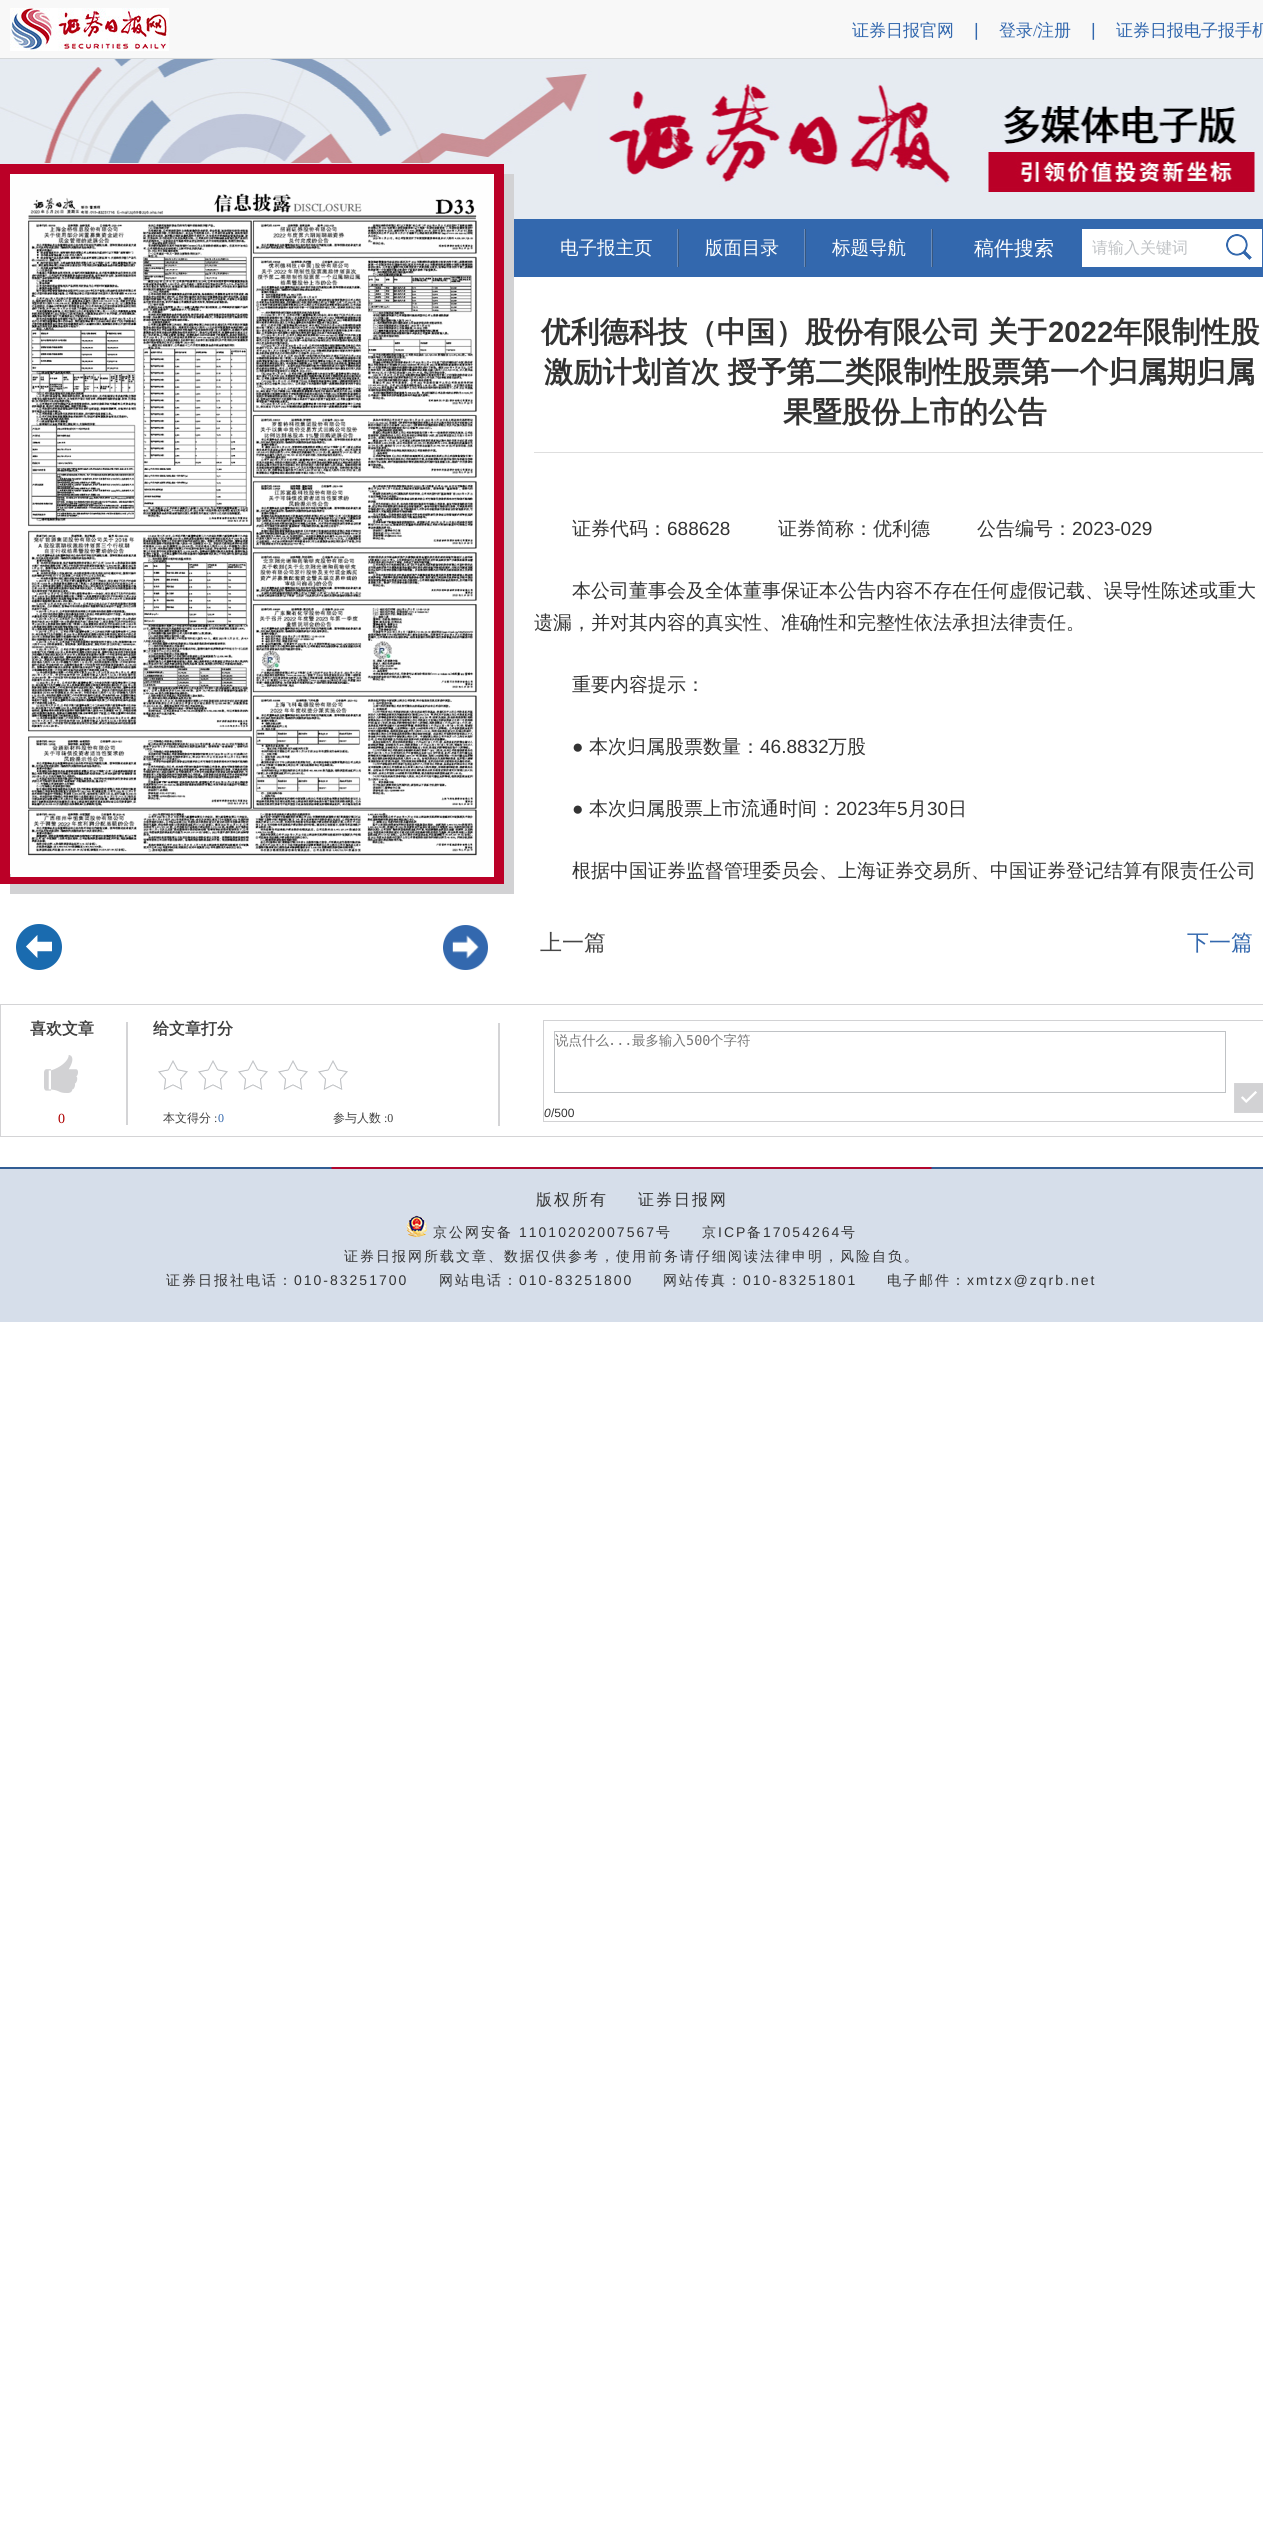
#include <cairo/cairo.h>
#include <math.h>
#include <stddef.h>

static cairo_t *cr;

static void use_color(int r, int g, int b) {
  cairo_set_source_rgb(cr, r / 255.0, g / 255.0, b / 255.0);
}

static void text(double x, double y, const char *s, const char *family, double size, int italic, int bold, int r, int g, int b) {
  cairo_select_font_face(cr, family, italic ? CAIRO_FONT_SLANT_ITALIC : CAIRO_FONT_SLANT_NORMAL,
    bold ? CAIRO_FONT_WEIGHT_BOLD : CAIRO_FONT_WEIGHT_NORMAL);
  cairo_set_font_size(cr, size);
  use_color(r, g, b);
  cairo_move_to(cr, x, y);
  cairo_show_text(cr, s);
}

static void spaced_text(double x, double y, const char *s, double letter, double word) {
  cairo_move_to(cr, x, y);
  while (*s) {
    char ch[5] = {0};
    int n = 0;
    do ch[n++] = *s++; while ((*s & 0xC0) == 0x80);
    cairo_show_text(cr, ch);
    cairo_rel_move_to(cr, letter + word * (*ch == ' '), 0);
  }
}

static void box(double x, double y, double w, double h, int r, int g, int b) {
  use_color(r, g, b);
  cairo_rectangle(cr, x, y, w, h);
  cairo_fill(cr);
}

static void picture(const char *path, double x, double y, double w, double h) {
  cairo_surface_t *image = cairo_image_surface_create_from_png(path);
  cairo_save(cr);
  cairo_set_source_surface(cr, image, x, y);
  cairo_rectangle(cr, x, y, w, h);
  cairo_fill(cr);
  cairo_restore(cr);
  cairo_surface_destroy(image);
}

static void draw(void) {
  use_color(255, 255, 255);
  cairo_paint(cr);
  box(0, 0, 1263, 58, 248, 248, 248);
  box(0, 58, 1263, 1, 213, 216, 218);
  picture("img_01.png", 10, 8, 159, 43);
  picture("img_02.png", 0, 59, 1263, 218);
  picture("img_03.png", 0, 164, 514, 730);
  box(11, 874, 483, 3, 255, 255, 255);
  box(10, 874, 1, 3, 210, 210, 210);
  picture("img_04.png", 10, 174, 484, 700);
  picture("img_05.png", 16, 924, 46, 46);
  picture("img_06.png", 443, 925, 45, 45);
  picture("img_07.png", 677, 229, 2, 38);
  picture("img_07.png", 804, 229, 2, 38);
  picture("img_07.png", 931, 229, 2, 38);
  box(1082, 229, 180, 38, 255, 255, 255);
  picture("img_08.png", 1226, 234, 26, 26);
  box(534, 452, 729, 1, 222, 222, 222);
  cairo_rectangle(cr, 0.5, 1004.5, 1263, 132);
  use_color(212, 212, 214);
  cairo_set_line_width(cr, 1);
  cairo_stroke(cr);
  picture("img_09.png", 44, 1055, 34, 38);
  box(126, 1022, 2, 103, 212, 212, 214);
  box(498, 1023, 2, 103, 212, 212, 214);
  picture("img_10.png", 158, 1060, 30, 30);
  picture("img_10.png", 198, 1060, 30, 30);
  picture("img_10.png", 238, 1060, 30, 30);
  picture("img_10.png", 278, 1060, 30, 30);
  picture("img_10.png", 318, 1060, 30, 30);
  cairo_rectangle(cr, 543.5, 1020.5, 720, 101);
  use_color(210, 210, 212);
  cairo_stroke(cr);
  cairo_rectangle(cr, 554.5, 1031.5, 671, 61);
  use_color(191, 194, 197);
  cairo_stroke(cr);
  picture("img_11.png", 1234, 1083, 29, 30);
  box(0, 1169, 1263, 153, 214, 222, 234);
  picture("img_12.png", 0, 1167, 1263, 2);
  picture("img_13.png", 406, 1215, 21, 22);
  text(852, 36, "证券日报官网", "WenQuanYi Zen Hei Medium", 17, 0, 0, 51, 104, 174);
  text(974, 36, "|", "Liberation Sans", 18, 0, 0, 51, 104, 174);
  text(999, 36, "登录", "WenQuanYi Zen Hei Medium", 17, 0, 0, 51, 104, 174);
  text(1033, 36, "/", "Liberation Serif", 17, 0, 0, 51, 104, 174);
  text(1037, 36, "注册", "WenQuanYi Zen Hei Medium", 17, 0, 0, 51, 104, 174);
  text(1091, 36, "|", "Liberation Sans", 18, 0, 0, 51, 104, 174);
  text(1116, 36, "证券日报电子报手机", "WenQuanYi Zen Hei Medium", 17, 0, 0, 51, 104, 174);
  text(560, 254, "电子报主页", "WenQuanYi Zen Hei Medium", 18.5, 0, 0, 255, 255, 255);
  text(705, 254, "版面目录", "WenQuanYi Zen Hei Medium", 18.5, 0, 0, 255, 255, 255);
  text(832, 254, "标题导航", "WenQuanYi Zen Hei Medium", 18.5, 0, 0, 255, 255, 255);
  text(974, 255, "稿件搜索", "WenQuanYi Zen Hei Medium", 20, 0, 0, 255, 255, 255);
  cairo_save(cr);
  cairo_rectangle(cr, 1092, 240, 120, 18);
  cairo_clip(cr);
  text(1092, 253, "请输入关键词", "WenQuanYi Zen Hei Medium", 16, 0, 0, 191, 194, 197);
  cairo_restore(cr);
  cairo_select_font_face(cr, "WenQuanYi Zen Hei", CAIRO_FONT_SLANT_NORMAL, CAIRO_FONT_WEIGHT_BOLD);
  cairo_set_font_size(cr, 29.3);
  use_color(51, 51, 51);
  spaced_text(541, 342, "优利德科技（中国）股份有限公司 关于", 0, -1);
  text(1048, 342, "2022", "Liberation Sans", 29.3, 0, 1, 51, 51, 51);
  text(1113, 342, "年限制性股", "WenQuanYi Zen Hei", 29.3, 0, 1, 51, 51, 51);
  spaced_text(544, 382, "激励计划首次 授予第二类限制性股票第一个归属期归属", 0, -1);
  text(783, 422, "果暨股份上市的公告", "WenQuanYi Zen Hei", 29.3, 0, 1, 51, 51, 51);
  text(572, 535, "证券代码：", "WenQuanYi Zen Hei Medium", 19, 0, 0, 51, 51, 51);
  text(667, 535, "688628", "Liberation Sans", 19, 0, 0, 51, 51, 51);
  text(778, 535, "证券简称：优利德", "WenQuanYi Zen Hei Medium", 19, 0, 0, 51, 51, 51);
  text(977, 535, "公告编号：", "WenQuanYi Zen Hei Medium", 19, 0, 0, 51, 51, 51);
  text(1072, 535, "2023-029", "Liberation Sans", 19, 0, 0, 51, 51, 51);
  text(572, 597, "本公司董事会及全体董事保证本公告内容不存在任何虚假记载、误导性陈述或重大", "WenQuanYi Zen Hei Medium", 19, 0, 0, 51, 51, 51);
  text(534, 629, "遗漏，并对其内容的真实性、准确性和完整性依法承担法律责任。", "WenQuanYi Zen Hei Medium", 19, 0, 0, 51, 51, 51);
  text(572, 691, "重要内容提示：", "WenQuanYi Zen Hei Medium", 19, 0, 0, 51, 51, 51);
  text(572, 753, "●", "Liberation Sans", 19, 0, 0, 51, 51, 51);
  text(589, 753, "本次归属股票数量：", "WenQuanYi Zen Hei Medium", 19, 0, 0, 51, 51, 51);
  text(760, 753, "46.8832", "Liberation Sans", 19, 0, 0, 51, 51, 51);
  text(828, 753, "万股", "WenQuanYi Zen Hei Medium", 19, 0, 0, 51, 51, 51);
  text(572, 815, "●", "Liberation Sans", 19, 0, 0, 51, 51, 51);
  text(589, 815, "本次归属股票上市流通时间：", "WenQuanYi Zen Hei Medium", 19, 0, 0, 51, 51, 51);
  text(836, 815, "2023", "Liberation Sans", 19, 0, 0, 51, 51, 51);
  text(878, 815, "年", "WenQuanYi Zen Hei Medium", 19, 0, 0, 51, 51, 51);
  text(897, 815, "5", "Liberation Sans", 19, 0, 0, 51, 51, 51);
  text(908, 815, "月", "WenQuanYi Zen Hei Medium", 19, 0, 0, 51, 51, 51);
  text(927, 815, "30", "Liberation Sans", 19, 0, 0, 51, 51, 51);
  text(948, 815, "日", "WenQuanYi Zen Hei Medium", 19, 0, 0, 51, 51, 51);
  text(572, 877, "根据中国证券监督管理委员会、上海证券交易所、中国证券登记结算有限责任公司", "WenQuanYi Zen Hei Medium", 19, 0, 0, 51, 51, 51);
  text(540, 950, "上一篇", "WenQuanYi Zen Hei Medium", 22, 0, 0, 70, 70, 70);
  text(1187, 950, "下一篇", "WenQuanYi Zen Hei Medium", 22, 0, 0, 51, 104, 174);
  text(30, 1034, "喜欢文章", "WenQuanYi Zen Hei", 16, 0, 1, 64, 64, 64);
  text(58, 1123, "0", "Liberation Serif", 14, 0, 0, 174, 0, 0);
  text(153, 1034, "给文章打分", "WenQuanYi Zen Hei", 16, 0, 1, 64, 64, 64);
  text(163, 1122, "本文得分", "WenQuanYi Zen Hei Medium", 12, 0, 0, 64, 64, 64);
  text(214, 1122, ":", "Liberation Serif", 12, 0, 0, 64, 64, 64);
  text(218, 1122, "0", "Liberation Serif", 12, 0, 0, 51, 104, 174);
  text(333, 1122, "参与人数", "WenQuanYi Zen Hei Medium", 12, 0, 0, 64, 64, 64);
  text(384, 1122, ":0", "Liberation Serif", 12, 0, 0, 64, 64, 64);
  text(555, 1045, "说点什么", "WenQuanYi Zen Hei Medium", 13.5, 0, 0, 117, 117, 117);
  text(608, 1045, "...", "DejaVu Sans Mono", 13.5, 0, 0, 117, 117, 117);
  text(632, 1045, "最多输入", "WenQuanYi Zen Hei Medium", 13.5, 0, 0, 117, 117, 117);
  text(686, 1045, "500", "DejaVu Sans Mono", 13.5, 0, 0, 117, 117, 117);
  text(710, 1045, "个字符", "WenQuanYi Zen Hei Medium", 13.5, 0, 0, 117, 117, 117);
  text(544, 1117, "0", "Liberation Sans", 12, 1, 0, 51, 51, 51);
  text(551, 1117, "/500", "Liberation Sans", 12, 0, 0, 51, 51, 51);
  cairo_select_font_face(cr, "WenQuanYi Zen Hei Medium", CAIRO_FONT_SLANT_NORMAL, CAIRO_FONT_WEIGHT_NORMAL);
  cairo_set_font_size(cr, 16);
  spaced_text(536, 1205, "版权所有", 2, 0);
  spaced_text(638, 1205, "证券日报网", 2, 0);
  cairo_set_font_size(cr, 14);
  spaced_text(433, 1237, "京公网安备", 2, 0);
  cairo_select_font_face(cr, "Liberation Sans", CAIRO_FONT_SLANT_NORMAL, CAIRO_FONT_WEIGHT_NORMAL);
  spaced_text(519, 1237, "11010202007567", 2, 0);
  cairo_select_font_face(cr, "WenQuanYi Zen Hei Medium", CAIRO_FONT_SLANT_NORMAL, CAIRO_FONT_WEIGHT_NORMAL);
  spaced_text(656, 1237, "号", 2, 0);
  spaced_text(702, 1237, "京", 2, 0);
  cairo_select_font_face(cr, "Liberation Sans", CAIRO_FONT_SLANT_NORMAL, CAIRO_FONT_WEIGHT_NORMAL);
  spaced_text(718, 1237, "ICP", 2, 0);
  cairo_select_font_face(cr, "WenQuanYi Zen Hei Medium", CAIRO_FONT_SLANT_NORMAL, CAIRO_FONT_WEIGHT_NORMAL);
  spaced_text(747, 1237, "备", 2, 0);
  cairo_select_font_face(cr, "Liberation Sans", CAIRO_FONT_SLANT_NORMAL, CAIRO_FONT_WEIGHT_NORMAL);
  spaced_text(763, 1237, "17054264", 2, 0);
  cairo_select_font_face(cr, "WenQuanYi Zen Hei Medium", CAIRO_FONT_SLANT_NORMAL, CAIRO_FONT_WEIGHT_NORMAL);
  spaced_text(841, 1237, "号", 2, 0);
  spaced_text(344, 1261, "证券日报网所载文章、数据仅供参考，使用前务请仔细阅读法律申明，风险自负。", 2, 0);
  spaced_text(166, 1285, "证券日报社电话：", 2, 0);
  cairo_select_font_face(cr, "Liberation Sans", CAIRO_FONT_SLANT_NORMAL, CAIRO_FONT_WEIGHT_NORMAL);
  spaced_text(294, 1285, "010-83251700", 2, 0);
  cairo_select_font_face(cr, "WenQuanYi Zen Hei Medium", CAIRO_FONT_SLANT_NORMAL, CAIRO_FONT_WEIGHT_NORMAL);
  spaced_text(439, 1285, "网站电话：", 2, 0);
  cairo_select_font_face(cr, "Liberation Sans", CAIRO_FONT_SLANT_NORMAL, CAIRO_FONT_WEIGHT_NORMAL);
  spaced_text(519, 1285, "010-83251800", 2, 0);
  cairo_select_font_face(cr, "WenQuanYi Zen Hei Medium", CAIRO_FONT_SLANT_NORMAL, CAIRO_FONT_WEIGHT_NORMAL);
  spaced_text(663, 1285, "网站传真：", 2, 0);
  cairo_select_font_face(cr, "Liberation Sans", CAIRO_FONT_SLANT_NORMAL, CAIRO_FONT_WEIGHT_NORMAL);
  spaced_text(743, 1285, "010-83251801", 2, 0);
  cairo_select_font_face(cr, "WenQuanYi Zen Hei Medium", CAIRO_FONT_SLANT_NORMAL, CAIRO_FONT_WEIGHT_NORMAL);
  spaced_text(887, 1285, "电子邮件：", 2, 0);
  cairo_select_font_face(cr, "Liberation Sans", CAIRO_FONT_SLANT_NORMAL, CAIRO_FONT_WEIGHT_NORMAL);
  spaced_text(967, 1285, "xmtzx@zqrb.net", 2, 0);
}

int main(void) {
  cairo_surface_t *surface = cairo_image_surface_create(CAIRO_FORMAT_RGB24, 1263, 2543);
  cr = cairo_create(surface);
  cairo_font_options_t *options = cairo_font_options_create();
  cairo_font_options_set_hint_metrics(options, CAIRO_HINT_METRICS_OFF);
  cairo_font_options_set_hint_style(options, CAIRO_HINT_STYLE_NONE);
  cairo_set_font_options(cr, options);
  cairo_set_miter_limit(cr, 4);
  draw();
  cairo_surface_write_to_png(surface, "out.png");
  cairo_font_options_destroy(options);
  cairo_destroy(cr);
  cairo_surface_destroy(surface);
  return 0;
}
